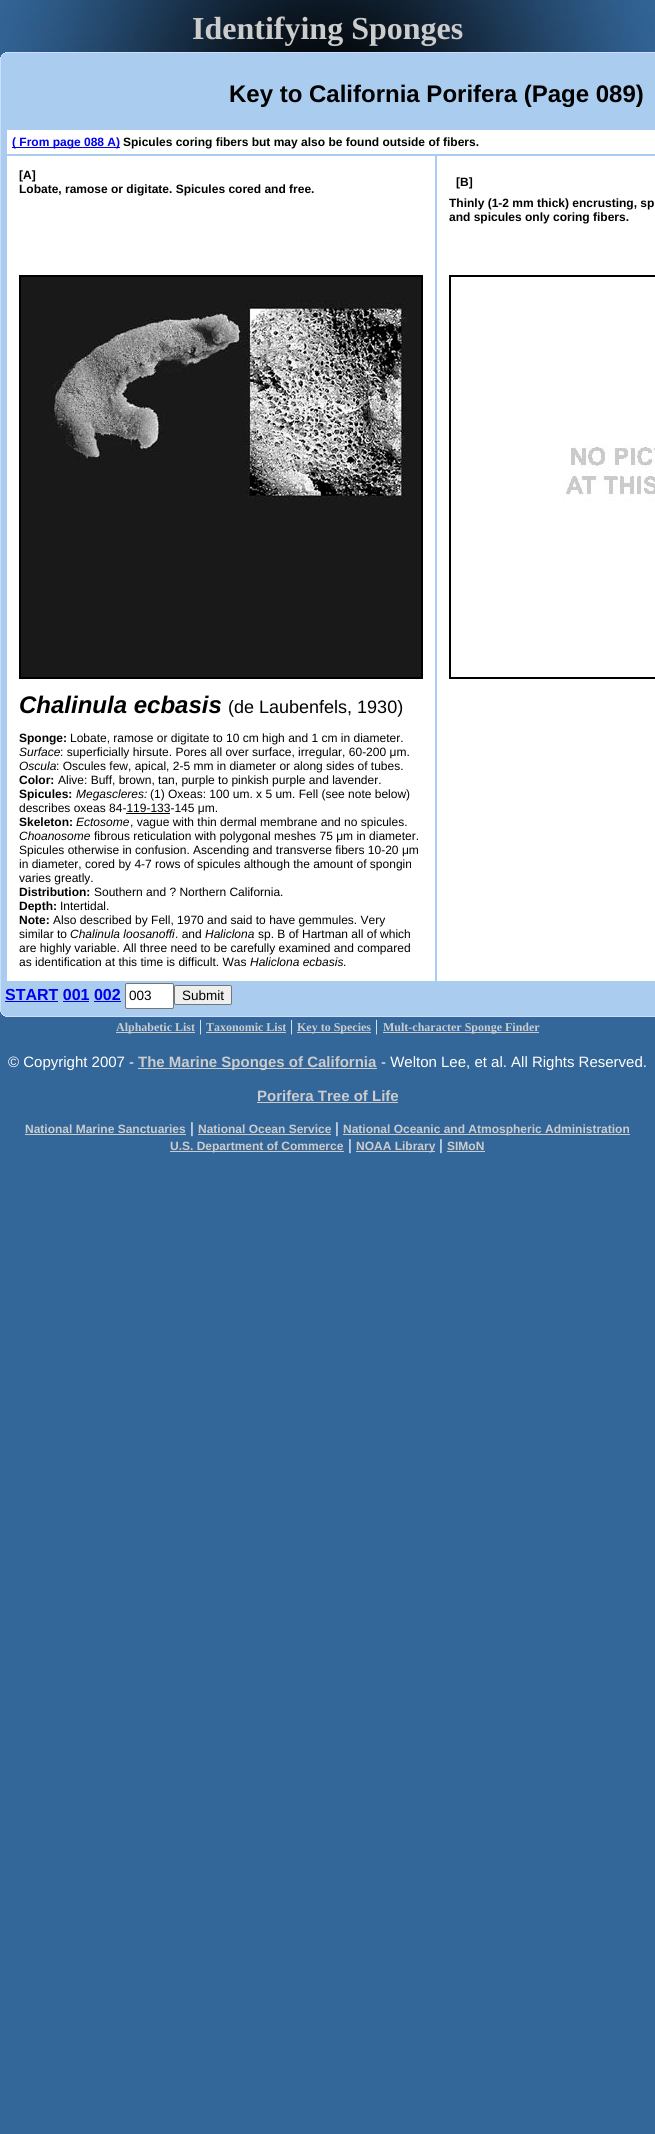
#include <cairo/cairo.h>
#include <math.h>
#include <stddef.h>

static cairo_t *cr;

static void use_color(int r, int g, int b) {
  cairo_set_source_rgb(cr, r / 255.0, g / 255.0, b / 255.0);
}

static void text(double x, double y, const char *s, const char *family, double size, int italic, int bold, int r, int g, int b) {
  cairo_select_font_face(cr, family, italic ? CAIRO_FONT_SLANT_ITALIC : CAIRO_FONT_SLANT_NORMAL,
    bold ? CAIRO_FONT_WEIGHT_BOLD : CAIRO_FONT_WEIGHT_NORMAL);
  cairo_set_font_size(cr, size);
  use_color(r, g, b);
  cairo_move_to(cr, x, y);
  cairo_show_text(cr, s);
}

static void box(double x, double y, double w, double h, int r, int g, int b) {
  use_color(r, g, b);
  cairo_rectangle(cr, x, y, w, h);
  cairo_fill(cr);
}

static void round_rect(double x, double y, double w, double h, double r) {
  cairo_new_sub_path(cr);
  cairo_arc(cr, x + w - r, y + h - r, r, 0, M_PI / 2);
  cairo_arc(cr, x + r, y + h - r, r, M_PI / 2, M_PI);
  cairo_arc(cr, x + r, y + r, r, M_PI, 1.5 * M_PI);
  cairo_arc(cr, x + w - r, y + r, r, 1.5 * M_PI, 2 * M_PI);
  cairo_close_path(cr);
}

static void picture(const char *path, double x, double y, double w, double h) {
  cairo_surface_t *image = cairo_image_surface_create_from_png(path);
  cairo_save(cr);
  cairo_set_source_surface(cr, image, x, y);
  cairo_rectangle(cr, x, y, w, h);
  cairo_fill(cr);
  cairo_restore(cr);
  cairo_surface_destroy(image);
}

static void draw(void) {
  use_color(51, 102, 153);
  cairo_paint(cr);
  picture("img_01.png", 0, 0, 655, 57);
  box(5, 52, 650, 1, 204, 221, 255);
  box(3, 53, 652, 1, 170, 204, 238);
  box(3, 53, 2, 1, 204, 221, 255);
  box(2, 54, 653, 1, 170, 204, 238);
  box(2, 54, 1, 1, 204, 221, 255);
  box(1, 55, 654, 959, 170, 204, 238);
  box(1, 55, 1, 2, 204, 221, 255);
  box(0, 57, 1, 955, 204, 221, 255);
  box(7, 130, 648, 24, 255, 255, 255);
  box(12, 147, 108, 1, 0, 0, 238);
  box(7, 156, 428, 825, 255, 255, 255);
  cairo_rectangle(cr, 20, 276, 402, 402);
  use_color(0, 0, 0);
  cairo_stroke(cr);
  picture("img_02.png", 21, 277, 400, 400);
  box(126, 813, 44, 1, 0, 0, 0);
  box(437, 156, 218, 825, 255, 255, 255);
  cairo_rectangle(cr, 450, 276, 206, 402);
  use_color(0, 0, 0);
  cairo_stroke(cr);
  picture("img_03.png", 563, 445, 92, 56);
  box(5, 1001, 53, 1, 0, 0, 238);
  use_color(255, 255, 255);
  round_rect(125.5, 983.5, 48, 25, 1.5);
  cairo_fill_preserve(cr);
  use_color(118, 118, 118);
  cairo_set_line_width(cr, 1);
  cairo_stroke(cr);
  use_color(239, 239, 239);
  round_rect(174.5, 985.5, 57, 19, 1.5);
  cairo_fill_preserve(cr);
  use_color(118, 118, 118);
  cairo_stroke(cr);
  box(63, 1001, 26, 1, 0, 0, 238);
  box(94, 1001, 27, 1, 0, 0, 238);
  box(1, 1012, 1, 2, 204, 221, 255);
  box(2, 1014, 653, 1, 170, 204, 238);
  box(2, 1014, 1, 1, 204, 221, 255);
  box(3, 1015, 652, 1, 170, 204, 238);
  box(3, 1015, 2, 1, 204, 221, 255);
  box(5, 1016, 650, 1, 204, 221, 255);
  box(116, 1032, 79, 1, 204, 204, 204);
  box(206, 1032, 80, 1, 204, 204, 204);
  box(297, 1032, 74, 1, 204, 204, 204);
  box(383, 1032, 156, 1, 204, 204, 204);
  box(138, 1068, 239, 1, 204, 204, 204);
  box(257, 1102, 141, 1, 204, 204, 204);
  box(25, 1134, 161, 1, 204, 204, 204);
  box(198, 1134, 133, 1, 204, 204, 204);
  box(343, 1134, 287, 1, 204, 204, 204);
  box(170, 1151, 174, 1, 204, 204, 204);
  box(356, 1151, 79, 1, 204, 204, 204);
  box(447, 1151, 38, 1, 204, 204, 204);
  text(192, 39, "Identifying Sponges", "Liberation Serif", 32, 0, 1, 204, 204, 204);
  text(229, 102, "Key to California Porifera (Page 089)", "Liberation Sans", 24, 0, 1, 0, 0, 0);
  text(12, 146, "( From page 088 A)", "Liberation Sans", 12, 0, 1, 0, 0, 238);
  text(123, 146, "Spicules coring fibers but may also be found outside of fibers.", "Liberation Sans", 12, 0, 1, 0, 0, 0);
  text(19, 179, "[A]", "Liberation Sans", 12, 0, 1, 0, 0, 0);
  text(19, 193, "Lobate, ramose or digitate. Spicules cored and free.", "Liberation Sans", 12, 0, 1, 0, 0, 0);
  text(19, 713, "Chalinula ecbasis", "Liberation Sans", 24, 1, 1, 0, 0, 0);
  text(228, 713, "(de Laubenfels, 1930)", "Liberation Sans", 18, 0, 0, 0, 0, 0);
  text(19, 742, "Sponge:", "Liberation Sans", 12, 0, 1, 0, 0, 0);
  text(70, 742, "Lobate, ramose or digitate to 10 cm high and 1 cm in diameter.", "Liberation Sans", 12, 0, 0, 0, 0, 0);
  text(19, 756, "Surface", "Liberation Sans", 12, 1, 0, 0, 0, 0);
  text(60, 756, ": superficially hirsute. Pores all over surface, irregular, 60-200 μm.", "Liberation Sans", 12, 0, 0, 0, 0, 0);
  text(19, 770, "Oscula", "Liberation Sans", 12, 1, 0, 0, 0, 0);
  text(56, 770, ": Oscules few, apical, 2-5 mm in diameter or along sides of tubes.", "Liberation Sans", 12, 0, 0, 0, 0, 0);
  text(19, 784, "Color:", "Liberation Sans", 12, 0, 1, 0, 0, 0);
  text(58, 784, "Alive: Buff, brown, tan, purple to pinkish purple and lavender.", "Liberation Sans", 12, 0, 0, 0, 0, 0);
  text(19, 798, "Spicules:", "Liberation Sans", 12, 0, 1, 0, 0, 0);
  text(76, 798, "Megascleres:", "Liberation Sans", 12, 1, 0, 0, 0, 0);
  text(150, 798, "(1) Oxeas: 100 um. x 5 um. Fell (see note below)", "Liberation Sans", 12, 0, 0, 0, 0, 0);
  text(19, 812, "describes oxeas 84-119-133-145 μm.", "Liberation Sans", 12, 0, 0, 0, 0, 0);
  text(19, 826, "Skeleton:", "Liberation Sans", 12, 0, 1, 0, 0, 0);
  text(76, 826, "Ectosome", "Liberation Sans", 12, 1, 0, 0, 0, 0);
  text(130, 826, ", vague with thin dermal membrane and no spicules.", "Liberation Sans", 12, 0, 0, 0, 0, 0);
  text(19, 840, "Choanosome", "Liberation Sans", 12, 1, 0, 0, 0, 0);
  text(94, 840, "fibrous reticulation with polygonal meshes 75 μm in diameter.", "Liberation Sans", 12, 0, 0, 0, 0, 0);
  text(19, 854, "Spicules otherwise in confusion. Ascending and transverse fibers 10-20 μm", "Liberation Sans", 12, 0, 0, 0, 0, 0);
  text(19, 868, "in diameter, cored by 4-7 rows of spicules although the amount of spongin", "Liberation Sans", 12, 0, 0, 0, 0, 0);
  text(19, 882, "varies greatly.", "Liberation Sans", 12, 0, 0, 0, 0, 0);
  text(19, 896, "Distribution:", "Liberation Sans", 12, 0, 1, 0, 0, 0);
  text(94, 896, "Southern and ? Northern California.", "Liberation Sans", 12, 0, 0, 0, 0, 0);
  text(19, 910, "Depth:", "Liberation Sans", 12, 0, 1, 0, 0, 0);
  text(60, 910, "Intertidal.", "Liberation Sans", 12, 0, 0, 0, 0, 0);
  text(19, 924, "Note:", "Liberation Sans", 12, 0, 1, 0, 0, 0);
  text(53, 924, "Also described by Fell, 1970 and said to have gemmules. Very", "Liberation Sans", 12, 0, 0, 0, 0, 0);
  text(19, 938, "similar to", "Liberation Sans", 12, 0, 0, 0, 0, 0);
  text(70, 938, "Chalinula loosanoffi", "Liberation Sans", 12, 1, 0, 0, 0, 0);
  text(175, 938, ". and", "Liberation Sans", 12, 0, 0, 0, 0, 0);
  text(205, 938, "Haliclona", "Liberation Sans", 12, 1, 0, 0, 0, 0);
  text(258, 938, "sp. B of Hartman all of which", "Liberation Sans", 12, 0, 0, 0, 0, 0);
  text(19, 952, "are highly variable. All three need to be carefully examined and compared", "Liberation Sans", 12, 0, 0, 0, 0, 0);
  text(19, 966, "as identification at this time is difficult. Was", "Liberation Sans", 12, 0, 0, 0, 0, 0);
  text(250, 966, "Haliclona ecbasis", "Liberation Sans", 12, 1, 0, 0, 0, 0);
  text(343, 966, ".", "Liberation Sans", 12, 0, 0, 0, 0, 0);
  text(456, 186, "[B]", "Liberation Sans", 12, 0, 1, 0, 0, 0);
  text(449, 207, "Thinly (1-2 mm thick) encrusting, sp", "Liberation Sans", 12, 0, 1, 0, 0, 0);
  text(449, 221, "and spicules only coring fibers.", "Liberation Sans", 12, 0, 1, 0, 0, 0);
  text(5, 1000, "START 001 002", "Liberation Sans", 16, 0, 1, 0, 0, 238);
  text(129, 1000, "003", "Liberation Sans", 13.5, 0, 0, 0, 0, 0);
  text(182, 1000, "Submit", "Liberation Sans", 13.5, 0, 0, 0, 0, 0);
  text(116, 1031, "Alphabetic List", "Liberation Serif", 12, 0, 1, 204, 204, 204);
  text(199, 1031, "|", "Liberation Serif", 16, 0, 0, 255, 255, 255);
  text(206, 1031, "Taxonomic List", "Liberation Serif", 12, 0, 1, 204, 204, 204);
  text(290, 1031, "|", "Liberation Serif", 16, 0, 0, 255, 255, 255);
  text(297, 1031, "Key to Species", "Liberation Serif", 12, 0, 1, 204, 204, 204);
  text(375, 1031, "|", "Liberation Serif", 16, 0, 0, 255, 255, 255);
  text(383, 1031, "Mult-character Sponge Finder", "Liberation Serif", 12, 0, 1, 204, 204, 204);
  text(8, 1067, "© Copyright 2007 -", "Liberation Sans", 15, 0, 0, 255, 255, 255);
  text(138, 1067, "The Marine Sponges of California", "Liberation Sans", 15, 0, 1, 204, 204, 204);
  text(381, 1067, "- Welton Lee, et al. All Rights Reserved.", "Liberation Sans", 15, 0, 0, 255, 255, 255);
  text(257, 1101, "Porifera Tree of Life", "Liberation Sans", 15, 0, 1, 204, 204, 204);
  text(25, 1133, "National Marine Sanctuaries", "Liberation Sans", 12, 0, 1, 204, 204, 204);
  text(190, 1133, "|", "Liberation Sans", 15, 0, 0, 255, 255, 255);
  text(198, 1133, "National Ocean Service", "Liberation Sans", 12, 0, 1, 204, 204, 204);
  text(335, 1133, "|", "Liberation Sans", 15, 0, 0, 255, 255, 255);
  text(343, 1133, "National Oceanic and Atmospheric Administration", "Liberation Sans", 12, 0, 1, 204, 204, 204);
  text(170, 1150, "U.S. Department of Commerce", "Liberation Sans", 12, 0, 1, 204, 204, 204);
  text(348, 1150, "|", "Liberation Sans", 15, 0, 0, 255, 255, 255);
  text(356, 1150, "NOAA Library", "Liberation Sans", 12, 0, 1, 204, 204, 204);
  text(439, 1150, "|", "Liberation Sans", 15, 0, 0, 255, 255, 255);
  text(447, 1150, "SIMoN", "Liberation Sans", 12, 0, 1, 204, 204, 204);
}

int main(void) {
  cairo_surface_t *surface = cairo_image_surface_create(CAIRO_FORMAT_RGB24, 655, 2134);
  cr = cairo_create(surface);
  cairo_font_options_t *options = cairo_font_options_create();
  cairo_font_options_set_hint_metrics(options, CAIRO_HINT_METRICS_OFF);
  cairo_font_options_set_hint_style(options, CAIRO_HINT_STYLE_NONE);
  cairo_set_font_options(cr, options);
  cairo_set_miter_limit(cr, 4);
  draw();
  cairo_surface_write_to_png(surface, "out.png");
  cairo_font_options_destroy(options);
  cairo_destroy(cr);
  cairo_surface_destroy(surface);
  return 0;
}
